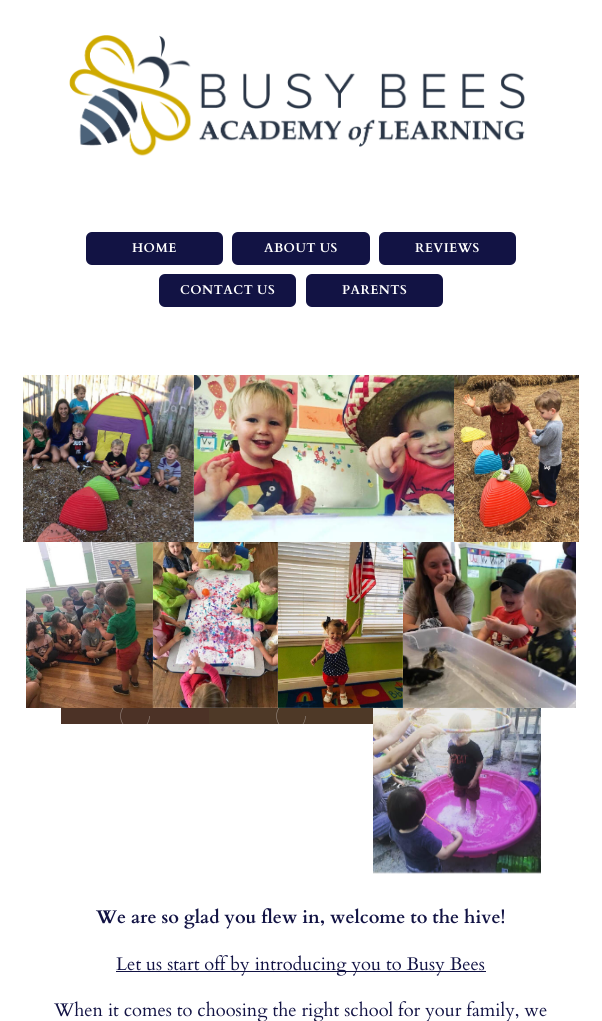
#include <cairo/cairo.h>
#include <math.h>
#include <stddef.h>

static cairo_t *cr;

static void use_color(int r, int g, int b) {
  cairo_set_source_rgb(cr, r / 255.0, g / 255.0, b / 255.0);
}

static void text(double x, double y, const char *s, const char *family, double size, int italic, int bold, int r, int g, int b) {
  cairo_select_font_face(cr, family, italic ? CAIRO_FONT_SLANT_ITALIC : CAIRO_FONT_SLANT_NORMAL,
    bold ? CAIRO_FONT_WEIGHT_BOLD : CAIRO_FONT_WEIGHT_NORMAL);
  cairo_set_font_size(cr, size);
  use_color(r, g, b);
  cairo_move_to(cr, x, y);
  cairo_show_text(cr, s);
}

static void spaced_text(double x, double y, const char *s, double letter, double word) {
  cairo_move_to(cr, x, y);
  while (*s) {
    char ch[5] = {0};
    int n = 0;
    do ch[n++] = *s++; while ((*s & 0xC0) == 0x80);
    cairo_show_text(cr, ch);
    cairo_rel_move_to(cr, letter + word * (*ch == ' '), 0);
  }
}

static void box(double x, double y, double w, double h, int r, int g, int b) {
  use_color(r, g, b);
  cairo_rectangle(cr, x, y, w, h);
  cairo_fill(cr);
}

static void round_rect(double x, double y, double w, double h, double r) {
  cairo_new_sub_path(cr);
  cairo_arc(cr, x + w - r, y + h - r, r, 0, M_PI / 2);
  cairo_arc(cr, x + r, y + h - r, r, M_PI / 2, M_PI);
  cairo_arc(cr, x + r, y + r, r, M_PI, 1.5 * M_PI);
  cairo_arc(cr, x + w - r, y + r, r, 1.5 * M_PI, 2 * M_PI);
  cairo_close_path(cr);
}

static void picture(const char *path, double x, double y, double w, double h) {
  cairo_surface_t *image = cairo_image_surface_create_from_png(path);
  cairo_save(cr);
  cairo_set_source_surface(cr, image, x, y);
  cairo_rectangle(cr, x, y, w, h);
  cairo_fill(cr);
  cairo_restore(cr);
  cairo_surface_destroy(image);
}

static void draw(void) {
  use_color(255, 255, 255);
  cairo_paint(cr);
  picture("img_01.png", 69, 35, 456, 121);
  use_color(18, 19, 68);
  round_rect(86, 232, 137, 33, 6);
  cairo_fill(cr);
  round_rect(232, 232, 138, 33, 6);
  cairo_fill(cr);
  round_rect(379, 232, 137, 33, 6);
  cairo_fill(cr);
  round_rect(159, 274, 137, 33, 6);
  cairo_fill(cr);
  round_rect(306, 274, 137, 33, 6);
  cairo_fill(cr);
  picture("img_02.png", 23, 375, 171, 167);
  picture("img_03.png", 194, 375, 260, 167);
  picture("img_04.png", 454, 375, 125, 167);
  picture("img_05.png", 26, 542, 127, 166);
  picture("img_06.png", 153, 542, 125, 166);
  picture("img_07.png", 278, 542, 125, 166);
  picture("img_08.png", 403, 542, 173, 166);
  box(61, 708, 148, 16, 76, 50, 38);
  cairo_save(cr);
  cairo_rectangle(cr, 113, 708, 44, 16);
  cairo_clip(cr);
  cairo_new_path(cr);
  cairo_move_to(cr, 113, 694);
  cairo_line_to(cr, 135, 694);
  cairo_line_to(cr, 135, 716);
  cairo_line_to(cr, 157, 716);
  cairo_line_to(cr, 157, 738);
  cairo_line_to(cr, 113, 738);
  cairo_close_path(cr);
  cairo_clip(cr);
  cairo_arc(cr, 135, 716, 14.5, 0, 2 * M_PI);
  use_color(139, 122, 114);
  cairo_set_line_width(cr, 0.7);
  cairo_stroke(cr);
  cairo_restore(cr);
  box(209, 708, 164, 16, 78, 57, 39);
  cairo_save(cr);
  cairo_rectangle(cr, 269, 708, 44, 16);
  cairo_clip(cr);
  cairo_new_path(cr);
  cairo_move_to(cr, 269, 694);
  cairo_line_to(cr, 291, 694);
  cairo_line_to(cr, 291, 716);
  cairo_line_to(cr, 313, 716);
  cairo_line_to(cr, 313, 738);
  cairo_line_to(cr, 269, 738);
  cairo_close_path(cr);
  cairo_clip(cr);
  cairo_arc(cr, 291, 716, 14.5, 0, 2 * M_PI);
  use_color(140, 126, 115);
  cairo_set_line_width(cr, 0.7);
  cairo_stroke(cr);
  cairo_restore(cr);
  picture("img_09.png", 373, 708, 168, 166);
  box(116, 971, 370, 1, 18, 19, 68);
  cairo_select_font_face(cr, "Cardo", CAIRO_FONT_SLANT_NORMAL, CAIRO_FONT_WEIGHT_BOLD);
  cairo_set_font_size(cr, 12.75);
  use_color(255, 255, 255);
  spaced_text(132, 252, "HOME", 0.4, 0);
  spaced_text(264, 252, "ABOUT US", 0.4, 0);
  spaced_text(415, 252, "REVIEWS", 0.4, 0);
  spaced_text(180, 294, "CONTACT US", 0.4, 0);
  spaced_text(342, 294, "PARENTS", 0.4, 0);
  text(96, 923, "We are so glad you flew in, welcome to the hive!", "Cardo", 18.3, 0, 1, 18, 19, 68);
  text(116, 970, "Let us start off by introducing you to Busy Bees", "Cardo", 18.3, 0, 0, 18, 19, 68);
  text(54, 1016, "When it comes to choosing the right school for your family, we", "Cardo", 18.3, 0, 0, 18, 19, 68);
}

int main(void) {
  cairo_surface_t *surface = cairo_image_surface_create(CAIRO_FORMAT_RGB24, 602, 1021);
  cr = cairo_create(surface);
  cairo_font_options_t *options = cairo_font_options_create();
  cairo_font_options_set_hint_metrics(options, CAIRO_HINT_METRICS_OFF);
  cairo_font_options_set_hint_style(options, CAIRO_HINT_STYLE_NONE);
  cairo_set_font_options(cr, options);
  cairo_set_miter_limit(cr, 4);
  draw();
  cairo_surface_write_to_png(surface, "out.png");
  cairo_font_options_destroy(options);
  cairo_destroy(cr);
  cairo_surface_destroy(surface);
  return 0;
}
